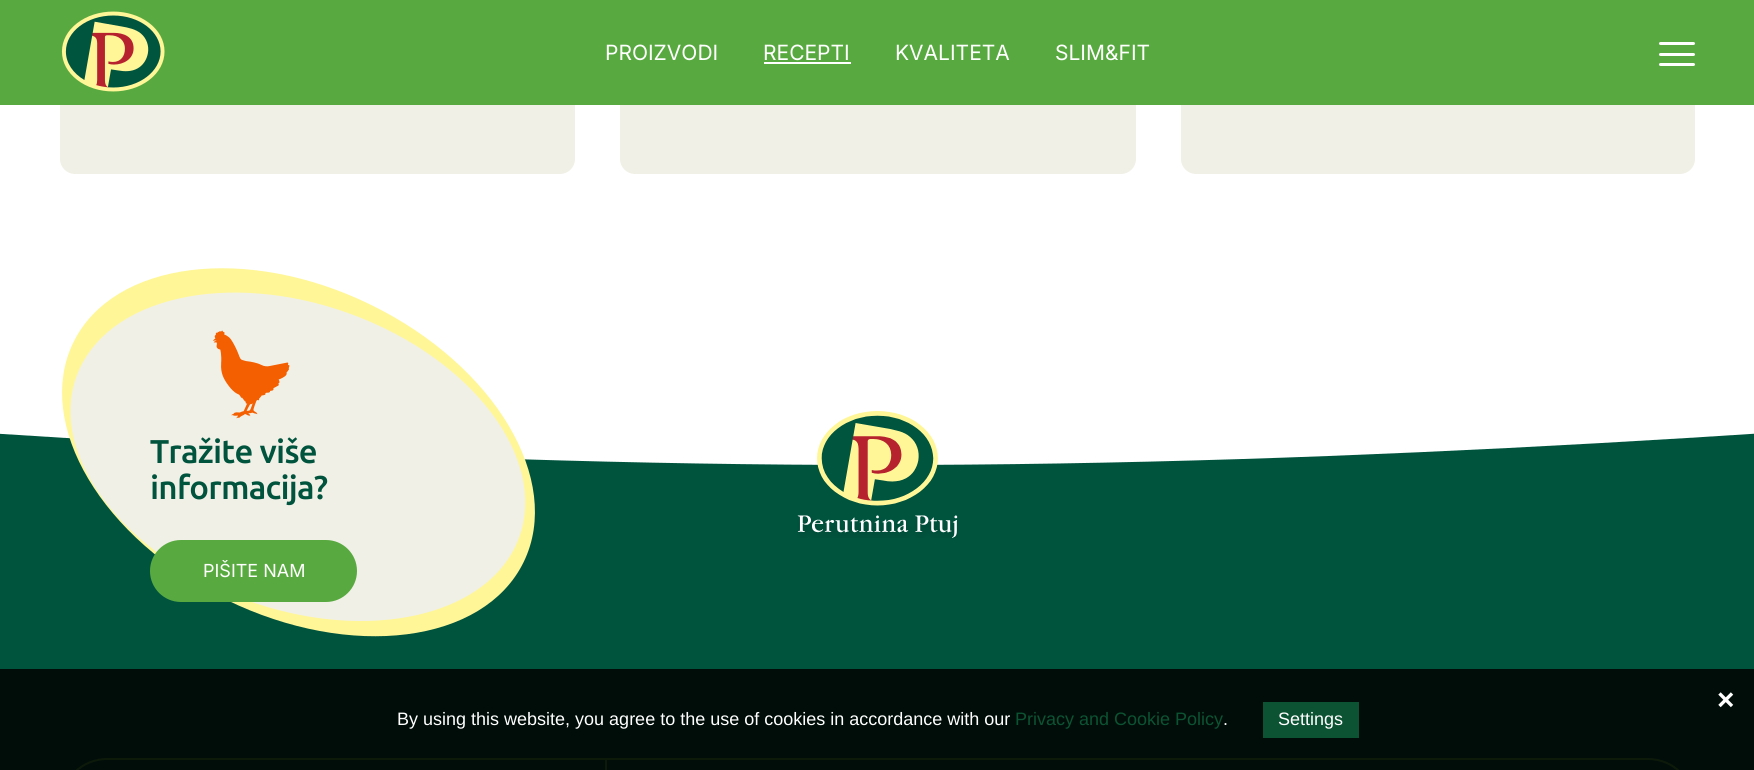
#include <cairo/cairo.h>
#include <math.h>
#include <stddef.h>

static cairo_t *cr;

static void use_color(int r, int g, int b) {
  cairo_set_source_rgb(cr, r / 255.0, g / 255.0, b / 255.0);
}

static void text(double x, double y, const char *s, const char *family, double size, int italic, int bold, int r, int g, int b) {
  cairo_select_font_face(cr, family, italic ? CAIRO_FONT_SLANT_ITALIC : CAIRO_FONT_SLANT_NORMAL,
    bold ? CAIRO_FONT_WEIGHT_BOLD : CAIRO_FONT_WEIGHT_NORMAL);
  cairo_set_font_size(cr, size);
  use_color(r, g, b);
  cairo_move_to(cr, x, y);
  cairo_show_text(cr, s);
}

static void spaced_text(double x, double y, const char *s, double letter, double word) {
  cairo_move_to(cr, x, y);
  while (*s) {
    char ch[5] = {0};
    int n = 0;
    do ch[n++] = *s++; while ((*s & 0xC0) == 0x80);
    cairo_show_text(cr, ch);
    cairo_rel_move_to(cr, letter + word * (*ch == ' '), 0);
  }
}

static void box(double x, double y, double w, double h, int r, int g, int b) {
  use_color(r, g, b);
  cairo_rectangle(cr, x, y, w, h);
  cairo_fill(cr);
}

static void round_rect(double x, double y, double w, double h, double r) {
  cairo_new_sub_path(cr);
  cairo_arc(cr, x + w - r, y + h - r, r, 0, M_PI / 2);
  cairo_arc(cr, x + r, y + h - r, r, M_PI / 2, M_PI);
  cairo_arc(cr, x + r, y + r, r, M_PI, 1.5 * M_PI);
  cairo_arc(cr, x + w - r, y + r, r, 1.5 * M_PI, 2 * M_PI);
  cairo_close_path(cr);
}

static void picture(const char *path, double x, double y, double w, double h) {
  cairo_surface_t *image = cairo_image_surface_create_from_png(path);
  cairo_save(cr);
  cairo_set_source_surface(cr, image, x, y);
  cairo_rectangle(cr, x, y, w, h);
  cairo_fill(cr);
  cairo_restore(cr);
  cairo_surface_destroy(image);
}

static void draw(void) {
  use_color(255, 255, 255);
  cairo_paint(cr);
  use_color(241, 240, 230);
  round_rect(60, -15, 515, 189, 15);
  cairo_fill(cr);
  round_rect(620, -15, 516, 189, 15);
  cairo_fill(cr);
  round_rect(1181, -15, 514, 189, 15);
  cairo_fill(cr);
  box(0, 0, 1754, 105, 88, 170, 64);
  picture("img_01.png", 61, 11, 104, 81);
  box(764, 62, 87, 2, 255, 255, 255);
  round_rect(1659, 42, 36, 3, 1.5);
  cairo_fill(cr);
  round_rect(1659, 53, 36, 3, 1.5);
  cairo_fill(cr);
  round_rect(1659, 63, 36, 3, 1.5);
  cairo_fill(cr);
  box(0, 433, 1754, 236, 0, 84, 62);
  box(0, 669, 1754, 101, 0, 13, 9);
  use_color(255, 255, 255);
  cairo_new_path(cr);
  cairo_move_to(cr, -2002, 336);
  cairo_line_to(cr, 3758, 336);
  cairo_line_to(cr, 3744, 279);
  cairo_curve_to(cr, 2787, 331, 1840, 465, 878, 465);
  cairo_curve_to(cr, -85, 465, -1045, 331, -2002, 279);
  cairo_close_path(cr);
  cairo_fill(cr);
  picture("img_02.png", 62, 268, 473, 369);
  use_color(88, 170, 64);
  round_rect(151, 541, 205, 60, 30);
  cairo_fill_preserve(cr);
  cairo_stroke(cr);
  picture("img_03.png", 797, 411, 161, 127);
  round_rect(61, 759, 1633, 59, 46);
  use_color(13, 26, 10);
  cairo_stroke(cr);
  box(605, 759, 2, 11, 13, 26, 10);
  picture("img_04.png", 1718, 692, 16, 16);
  box(1263, 702, 96, 36, 12, 83, 51);
  text(605, 60, "PROIZVODI", "Inter", 21, 0, 0, 255, 255, 255);
  text(763, 60, "RECEPTI", "Inter", 21, 0, 0, 255, 255, 255);
  text(895, 60, "KVALITETA", "Inter", 21, 0, 0, 255, 255, 255);
  text(1055, 60, "SLIM&FIT", "Inter", 21, 0, 0, 255, 255, 255);
  cairo_select_font_face(cr, "Ubuntu Medium", CAIRO_FONT_SLANT_NORMAL, CAIRO_FONT_WEIGHT_NORMAL);
  cairo_set_font_size(cr, 33);
  use_color(0, 84, 62);
  spaced_text(150, 463, "Tražite više", -0.75, 0);
  spaced_text(150, 499, "informacija?", -0.75, 0);
  text(203, 577, "PIŠITE NAM", "Inter", 18, 0, 0, 255, 255, 255);
  text(397, 725, "By using this website, you agree to the use of cookies in accordance with our", "Liberation Sans", 18, 0, 0, 255, 255, 255);
  text(1015, 725, "Privacy and Cookie Policy", "Liberation Sans", 18, 0, 0, 12, 83, 51);
  text(1223, 725, ".", "Liberation Sans", 18, 0, 0, 255, 255, 255);
  text(1278, 725, "Settings", "Liberation Sans", 18, 0, 0, 255, 255, 255);
}

int main(void) {
  cairo_surface_t *surface = cairo_image_surface_create(CAIRO_FORMAT_RGB24, 1754, 770);
  cr = cairo_create(surface);
  cairo_font_options_t *options = cairo_font_options_create();
  cairo_font_options_set_hint_metrics(options, CAIRO_HINT_METRICS_OFF);
  cairo_font_options_set_hint_style(options, CAIRO_HINT_STYLE_NONE);
  cairo_set_font_options(cr, options);
  cairo_set_miter_limit(cr, 4);
  draw();
  cairo_surface_write_to_png(surface, "out.png");
  cairo_font_options_destroy(options);
  cairo_destroy(cr);
  cairo_surface_destroy(surface);
  return 0;
}
